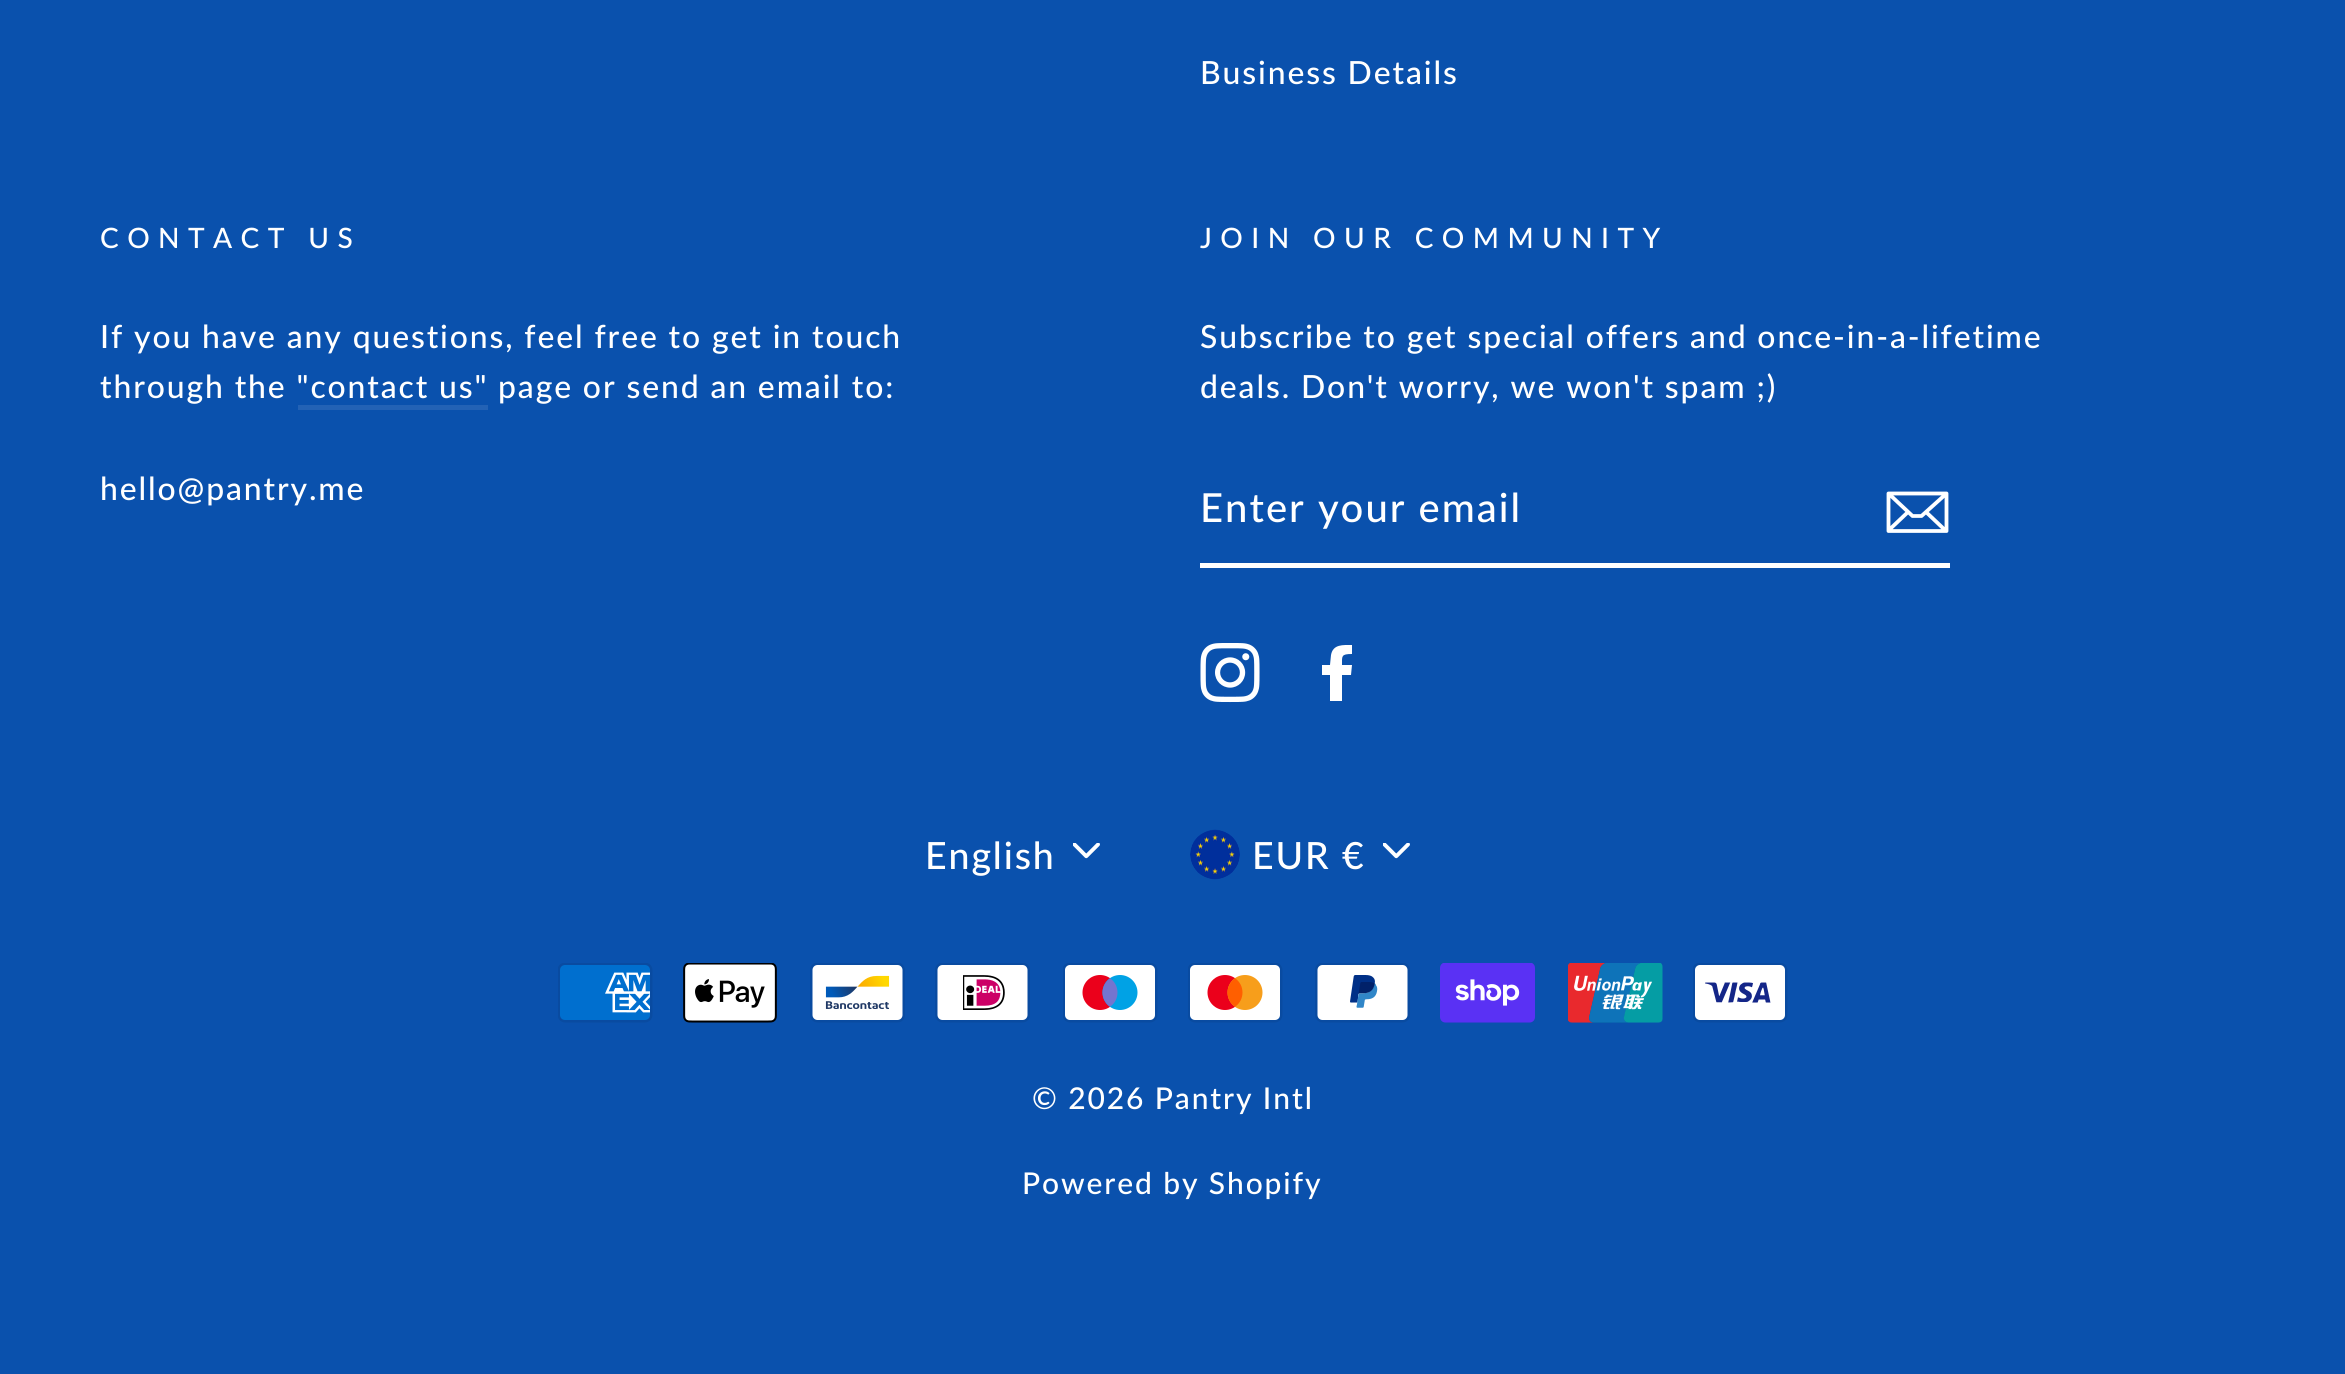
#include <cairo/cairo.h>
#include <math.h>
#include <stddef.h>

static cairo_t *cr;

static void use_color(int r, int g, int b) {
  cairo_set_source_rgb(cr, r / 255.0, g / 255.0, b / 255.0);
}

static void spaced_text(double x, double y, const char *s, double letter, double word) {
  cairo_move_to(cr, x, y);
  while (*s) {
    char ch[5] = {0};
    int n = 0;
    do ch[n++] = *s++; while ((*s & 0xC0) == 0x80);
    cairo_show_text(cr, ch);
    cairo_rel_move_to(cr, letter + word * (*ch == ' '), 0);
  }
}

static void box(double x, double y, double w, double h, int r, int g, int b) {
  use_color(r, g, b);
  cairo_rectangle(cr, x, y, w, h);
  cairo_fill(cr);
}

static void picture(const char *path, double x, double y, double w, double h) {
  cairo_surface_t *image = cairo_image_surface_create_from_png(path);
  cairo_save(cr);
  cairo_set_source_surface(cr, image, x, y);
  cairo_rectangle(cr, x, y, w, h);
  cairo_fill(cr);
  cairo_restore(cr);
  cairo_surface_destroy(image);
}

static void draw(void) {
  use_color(10, 81, 173);
  cairo_paint(cr);
  box(298, 405, 190, 5, 35, 98, 181);
  box(1200, 563, 750, 5, 255, 255, 255);
  cairo_new_path(cr);
  cairo_move_to(cr, 1946.5, 531);
  cairo_line_to(cr, 1888.5, 531);
  cairo_line_to(cr, 1888.5, 493.5);
  cairo_line_to(cr, 1946.5, 493.5);
  cairo_close_path(cr);
  cairo_move_to(cr, 1888.5, 493.5);
  cairo_line_to(cr, 1912.5, 516);
  cairo_line_to(cr, 1921.5, 516);
  cairo_line_to(cr, 1946.5, 493.5);
  cairo_move_to(cr, 1908, 512);
  cairo_line_to(cr, 1889, 530);
  cairo_move_to(cr, 1946, 531);
  cairo_line_to(cr, 1926, 512);
  cairo_set_line_width(cr, 3.8);
  cairo_set_line_cap(cr, CAIRO_LINE_CAP_ROUND);
  cairo_set_line_join(cr, CAIRO_LINE_JOIN_ROUND);
  cairo_stroke(cr);
  picture("img_01.png", 1200, 643, 60, 60);
  cairo_new_path(cr);
  cairo_move_to(cr, 1342, 701);
  cairo_line_to(cr, 1342, 675);
  cairo_line_to(cr, 1351, 675);
  cairo_line_to(cr, 1352, 665);
  cairo_line_to(cr, 1342, 665);
  cairo_curve_to(cr, 1342, 656, 1341, 654, 1352, 654);
  cairo_line_to(cr, 1352, 645);
  cairo_curve_to(cr, 1343, 645, 1333, 644, 1331, 655);
  cairo_line_to(cr, 1330, 665);
  cairo_line_to(cr, 1322, 665);
  cairo_line_to(cr, 1322, 675);
  cairo_line_to(cr, 1330, 675);
  cairo_line_to(cr, 1330, 701);
  cairo_close_path(cr);
  cairo_fill(cr);
  picture("img_02.png", 1073, 843, 27, 16);
  picture("img_02.png", 1383, 843, 27, 16);
  picture("img_03.png", 1190, 829, 50, 51);
  picture("img_04.png", 558, 963, 95, 60);
  picture("img_05.png", 683, 963, 94, 60);
  picture("img_06.png", 810, 963, 95, 60);
  picture("img_07.png", 935, 963, 95, 60);
  picture("img_08.png", 1063, 963, 95, 60);
  picture("img_09.png", 1188, 963, 95, 60);
  picture("img_10.png", 1315, 963, 95, 60);
  picture("img_11.png", 1440, 963, 95, 60);
  picture("img_12.png", 1568, 963, 95, 60);
  picture("img_13.png", 1693, 963, 95, 60);
  cairo_select_font_face(cr, "Lato Medium", CAIRO_FONT_SLANT_NORMAL, CAIRO_FONT_WEIGHT_NORMAL);
  cairo_set_font_size(cr, 31.9);
  spaced_text(1200, 84, "Business Details", 1.88, 0);
  cairo_set_font_size(cr, 28.1);
  spaced_text(100, 248, "CONTACT US", 8.4, 0);
  cairo_set_font_size(cr, 31.9);
  spaced_text(100, 348, "If you have any questions, feel free to get in touch", 1.88, 0);
  spaced_text(100, 398, "through the \"contact us\"", 1.88, 0);
  spaced_text(498, 398, "page or send an email to:", 1.88, 0);
  spaced_text(100, 500, "hello@pantry.me", 1.88, 0);
  cairo_set_font_size(cr, 28.1);
  spaced_text(1200, 248, "JOIN OUR COMMUNITY", 8.4, 0);
  cairo_set_font_size(cr, 31.9);
  spaced_text(1200, 348, "Subscribe to get special offers and once-in-a-lifetime", 1.88, 0);
  spaced_text(1200, 398, "deals. Don't worry, we won't spam ;)", 1.88, 0);
  cairo_set_font_size(cr, 40);
  spaced_text(1200, 522, "Enter your email", 2, 0);
  cairo_set_font_size(cr, 37.5);
  spaced_text(925, 869, "English", 1.88, 0);
  spaced_text(1252, 869, "EUR €", 1.88, 0);
  cairo_set_font_size(cr, 30);
  spaced_text(1032, 1109, "© 2026 Pantry Intl", 1.88, 0);
  spaced_text(1022, 1194, "Powered by Shopify", 1.88, 0);
}

int main(void) {
  cairo_surface_t *surface = cairo_image_surface_create(CAIRO_FORMAT_RGB24, 2345, 1374);
  cr = cairo_create(surface);
  cairo_font_options_t *options = cairo_font_options_create();
  cairo_font_options_set_hint_metrics(options, CAIRO_HINT_METRICS_OFF);
  cairo_font_options_set_hint_style(options, CAIRO_HINT_STYLE_NONE);
  cairo_set_font_options(cr, options);
  cairo_set_miter_limit(cr, 4);
  draw();
  cairo_surface_write_to_png(surface, "out.png");
  cairo_font_options_destroy(options);
  cairo_destroy(cr);
  cairo_surface_destroy(surface);
  return 0;
}
